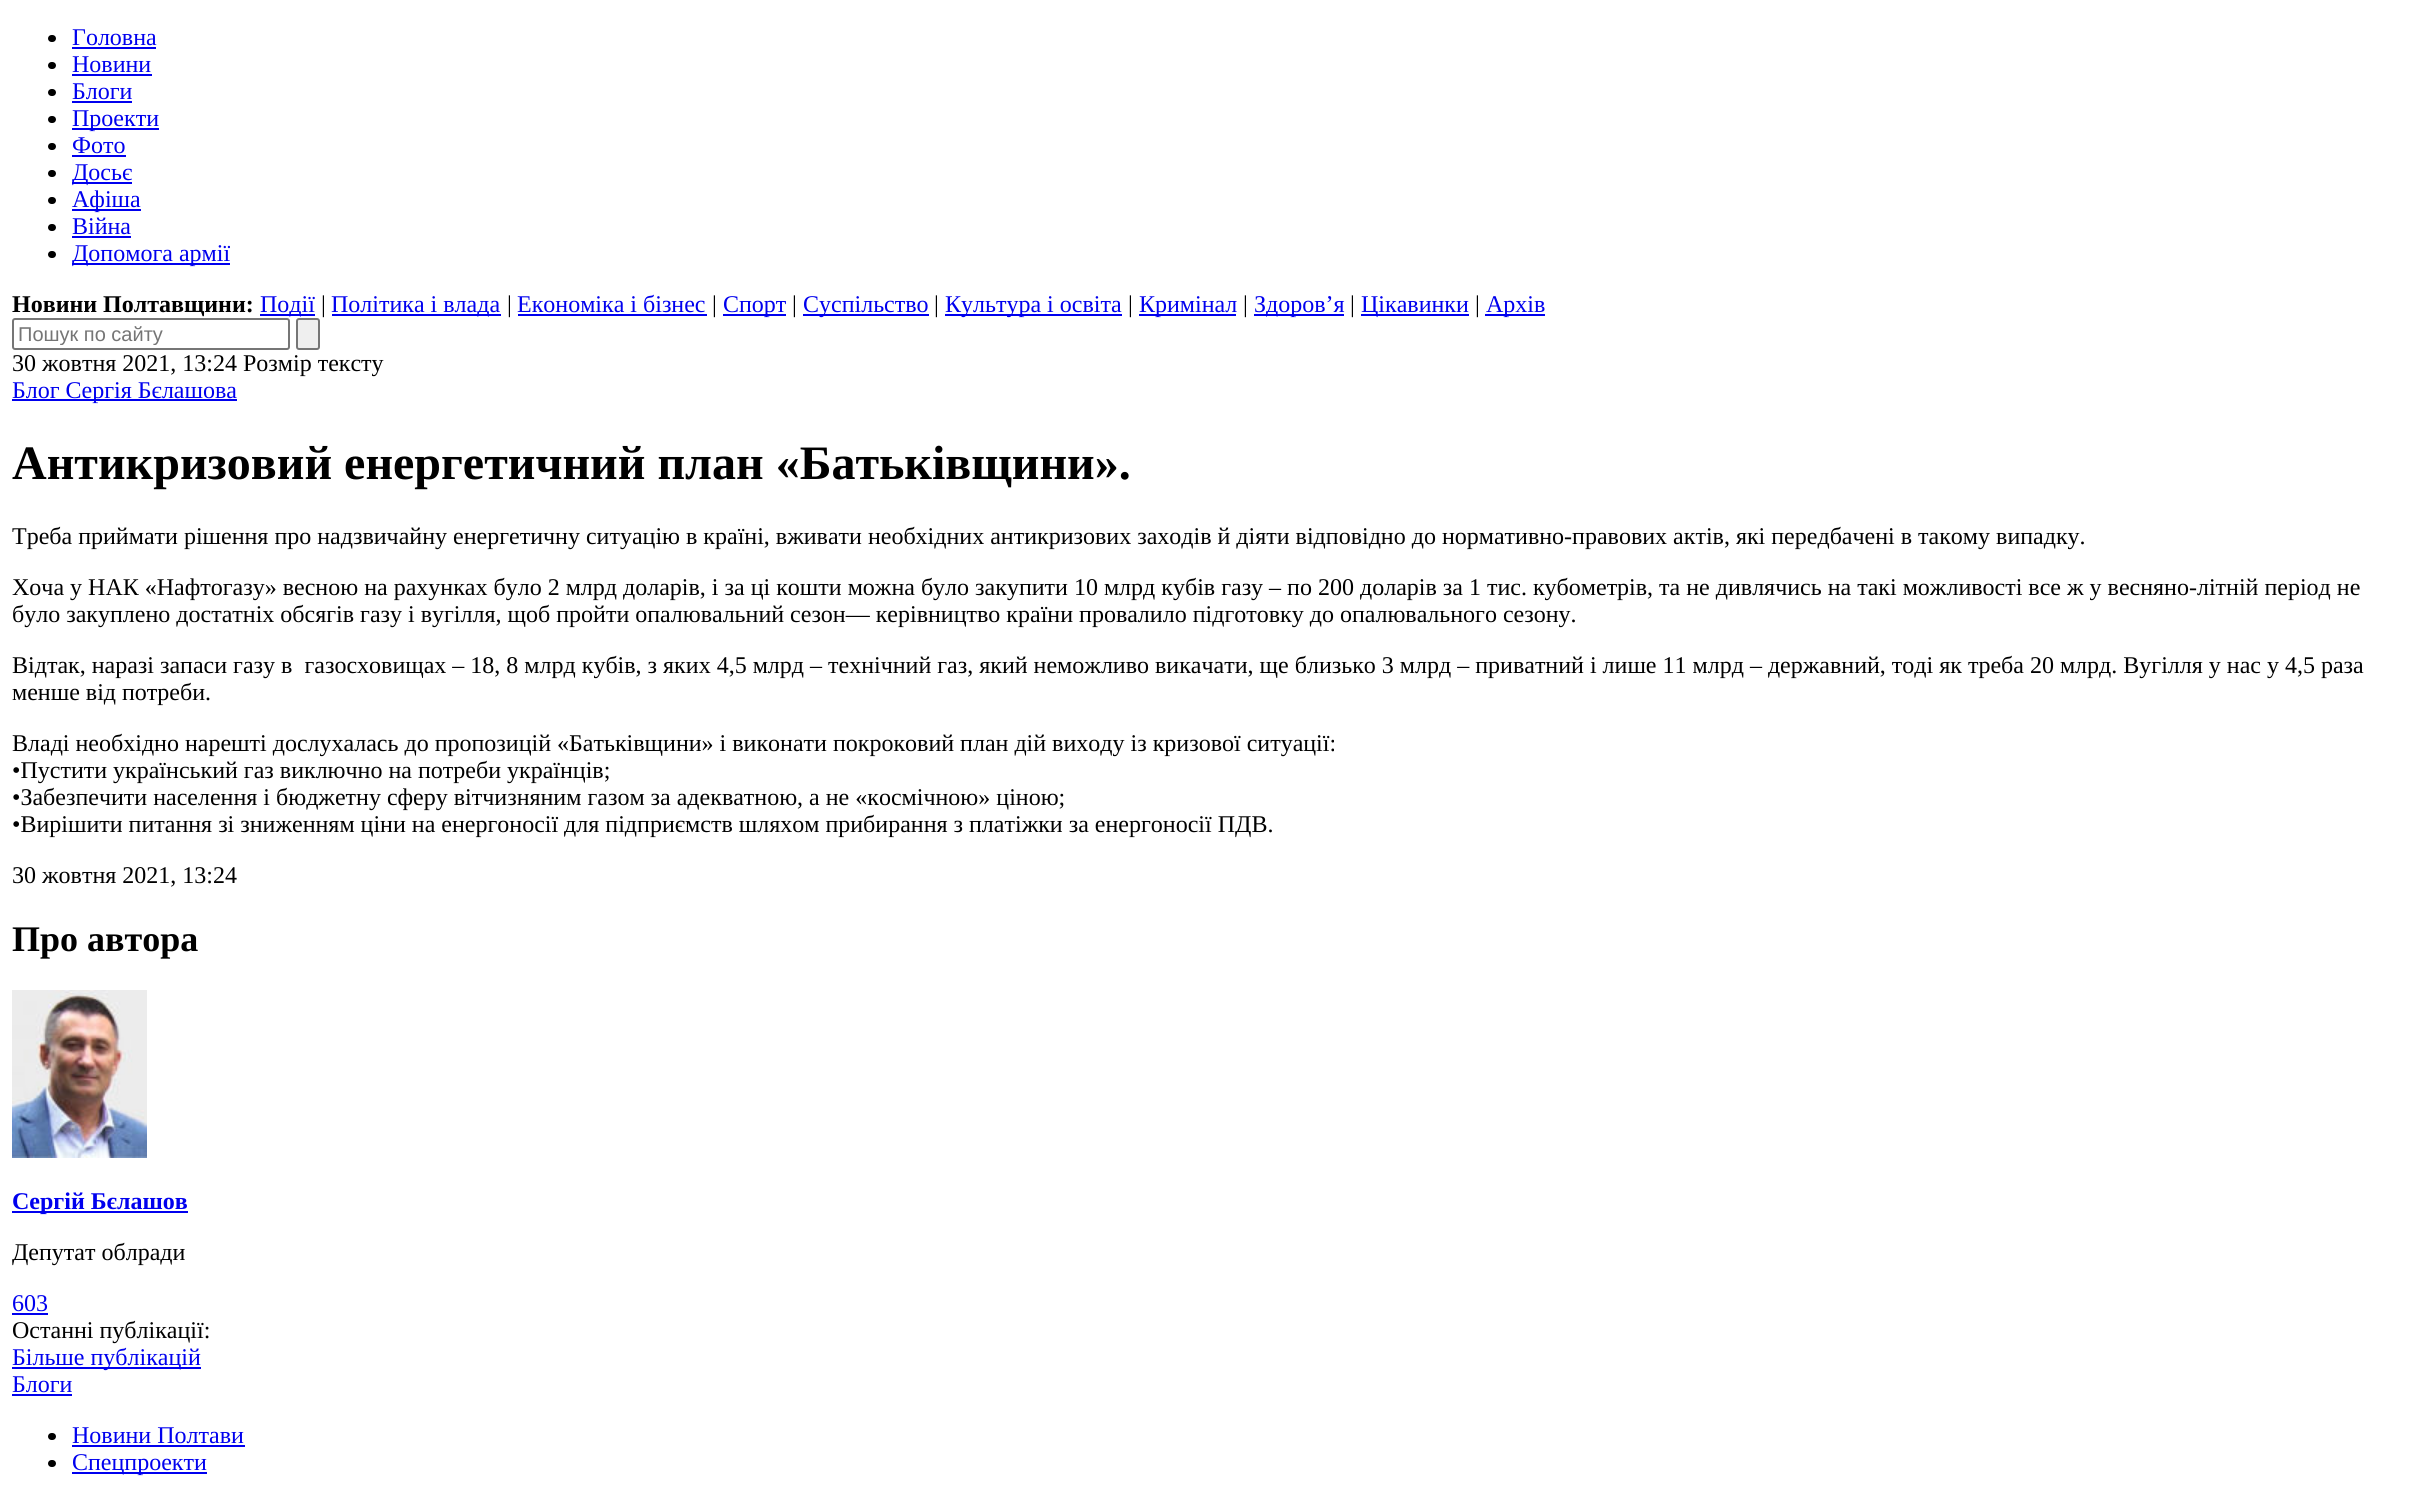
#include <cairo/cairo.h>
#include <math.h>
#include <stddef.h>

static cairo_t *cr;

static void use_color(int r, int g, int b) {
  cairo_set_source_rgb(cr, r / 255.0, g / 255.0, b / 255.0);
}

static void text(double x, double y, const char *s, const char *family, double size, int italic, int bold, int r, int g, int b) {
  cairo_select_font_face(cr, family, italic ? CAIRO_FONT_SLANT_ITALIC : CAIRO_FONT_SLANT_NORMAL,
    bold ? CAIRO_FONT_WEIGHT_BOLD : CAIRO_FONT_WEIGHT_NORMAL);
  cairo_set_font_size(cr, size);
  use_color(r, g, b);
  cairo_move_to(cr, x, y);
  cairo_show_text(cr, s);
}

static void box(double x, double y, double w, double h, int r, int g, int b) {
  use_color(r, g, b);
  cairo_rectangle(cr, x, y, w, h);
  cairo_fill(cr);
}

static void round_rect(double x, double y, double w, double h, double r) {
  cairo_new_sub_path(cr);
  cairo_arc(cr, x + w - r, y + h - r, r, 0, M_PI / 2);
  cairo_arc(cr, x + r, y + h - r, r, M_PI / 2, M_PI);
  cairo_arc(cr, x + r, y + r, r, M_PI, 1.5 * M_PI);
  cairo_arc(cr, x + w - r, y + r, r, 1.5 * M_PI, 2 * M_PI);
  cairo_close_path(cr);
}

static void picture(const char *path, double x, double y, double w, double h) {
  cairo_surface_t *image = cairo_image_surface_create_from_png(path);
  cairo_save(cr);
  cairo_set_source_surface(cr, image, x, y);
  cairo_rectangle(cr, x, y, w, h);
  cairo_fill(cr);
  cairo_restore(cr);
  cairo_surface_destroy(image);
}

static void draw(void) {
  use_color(255, 255, 255);
  cairo_paint(cr);
  use_color(0, 0, 0);
  round_rect(48, 35, 8, 7, 3.5);
  cairo_fill(cr);
  box(72, 47, 84, 2, 0, 0, 238);
  use_color(0, 0, 0);
  round_rect(48, 62, 8, 7, 3.5);
  cairo_fill(cr);
  box(72, 74, 80, 2, 0, 0, 238);
  use_color(0, 0, 0);
  round_rect(48, 89, 8, 7, 3.5);
  cairo_fill(cr);
  box(72, 101, 60, 2, 0, 0, 238);
  use_color(0, 0, 0);
  round_rect(48, 116, 8, 7, 3.5);
  cairo_fill(cr);
  box(72, 128, 87, 2, 0, 0, 238);
  use_color(0, 0, 0);
  round_rect(48, 143, 8, 7, 3.5);
  cairo_fill(cr);
  box(72, 155, 54, 2, 0, 0, 238);
  use_color(0, 0, 0);
  round_rect(48, 170, 8, 7, 3.5);
  cairo_fill(cr);
  box(72, 182, 60, 2, 0, 0, 238);
  use_color(0, 0, 0);
  round_rect(48, 197, 8, 7, 3.5);
  cairo_fill(cr);
  box(72, 209, 69, 2, 0, 0, 238);
  use_color(0, 0, 0);
  round_rect(48, 224, 8, 7, 3.5);
  cairo_fill(cr);
  box(72, 236, 59, 2, 0, 0, 238);
  use_color(0, 0, 0);
  round_rect(48, 251, 8, 7, 3.5);
  cairo_fill(cr);
  box(72, 263, 158, 2, 0, 0, 238);
  box(260, 314, 55, 2, 0, 0, 238);
  box(332, 314, 169, 2, 0, 0, 238);
  box(518, 314, 189, 2, 0, 0, 238);
  box(723, 314, 63, 2, 0, 0, 238);
  box(803, 314, 126, 2, 0, 0, 238);
  box(945, 314, 177, 2, 0, 0, 238);
  box(1139, 314, 97, 2, 0, 0, 238);
  box(1254, 314, 90, 2, 0, 0, 238);
  box(1361, 314, 108, 2, 0, 0, 238);
  box(1485, 314, 60, 2, 0, 0, 238);
  round_rect(13, 319, 276, 30, 2);
  use_color(118, 118, 118);
  cairo_stroke(cr);
  use_color(239, 239, 239);
  round_rect(297, 319, 22, 30, 2);
  cairo_fill_preserve(cr);
  use_color(118, 118, 118);
  cairo_stroke(cr);
  box(12, 399, 225, 2, 0, 0, 238);
  picture("img_01.png", 12, 990, 135, 168);
  box(12, 1211, 176, 2, 0, 0, 238);
  box(12, 1313, 36, 2, 0, 0, 238);
  box(12, 1367, 189, 2, 0, 0, 238);
  box(12, 1394, 60, 2, 0, 0, 238);
  use_color(0, 0, 0);
  round_rect(48, 1433, 8, 7, 3.5);
  cairo_fill(cr);
  box(72, 1445, 173, 2, 0, 0, 238);
  use_color(0, 0, 0);
  round_rect(48, 1460, 8, 7, 3.5);
  cairo_fill(cr);
  box(72, 1472, 135, 2, 0, 0, 238);
  text(72, 45, "Головна", "Liberation Serif", 24, 0, 0, 0, 0, 238);
  text(72, 72, "Новини", "Liberation Serif", 24, 0, 0, 0, 0, 238);
  text(72, 99, "Блоги", "Liberation Serif", 24, 0, 0, 0, 0, 238);
  text(72, 126, "Проекти", "Liberation Serif", 24, 0, 0, 0, 0, 238);
  text(72, 153, "Фото", "Liberation Serif", 24, 0, 0, 0, 0, 238);
  text(72, 180, "Досьє", "Liberation Serif", 24, 0, 0, 0, 0, 238);
  text(72, 207, "Афіша", "Liberation Serif", 24, 0, 0, 0, 0, 238);
  text(72, 234, "Війна", "Liberation Serif", 24, 0, 0, 0, 0, 238);
  text(72, 261, "Допомога армії", "Liberation Serif", 24, 0, 0, 0, 0, 238);
  text(12, 312, "Новини Полтавщини:", "Liberation Serif", 24, 0, 1, 0, 0, 0);
  text(260, 312, "Події", "Liberation Serif", 24, 0, 0, 0, 0, 238);
  text(321, 312, "|", "Liberation Serif", 24, 0, 0, 0, 0, 0);
  text(331, 312, "Політика і влада", "Liberation Serif", 24, 0, 0, 0, 0, 238);
  text(507, 312, "|", "Liberation Serif", 24, 0, 0, 0, 0, 0);
  text(517, 312, "Економіка і бізнес", "Liberation Serif", 24, 0, 0, 0, 0, 238);
  text(712, 312, "|", "Liberation Serif", 24, 0, 0, 0, 0, 0);
  text(723, 312, "Спорт", "Liberation Serif", 24, 0, 0, 0, 0, 238);
  text(792, 312, "|", "Liberation Serif", 24, 0, 0, 0, 0, 0);
  text(803, 312, "Суспільство", "Liberation Serif", 24, 0, 0, 0, 0, 238);
  text(934, 312, "|", "Liberation Serif", 24, 0, 0, 0, 0, 0);
  text(945, 312, "Культура і освіта", "Liberation Serif", 24, 0, 0, 0, 0, 238);
  text(1128, 312, "|", "Liberation Serif", 24, 0, 0, 0, 0, 0);
  text(1139, 312, "Кримінал", "Liberation Serif", 24, 0, 0, 0, 0, 238);
  text(1243, 312, "|", "Liberation Serif", 24, 0, 0, 0, 0, 0);
  text(1254, 312, "Здоров’я", "Liberation Serif", 24, 0, 0, 0, 0, 238);
  text(1350, 312, "|", "Liberation Serif", 24, 0, 0, 0, 0, 0);
  text(1361, 312, "Цікавинки", "Liberation Serif", 24, 0, 0, 0, 0, 238);
  text(1475, 312, "|", "Liberation Serif", 24, 0, 0, 0, 0, 0);
  text(1486, 312, "Архів", "Liberation Serif", 24, 0, 0, 0, 0, 238);
  cairo_save(cr);
  cairo_rectangle(cr, 18, 323, 266, 22);
  cairo_clip(cr);
  text(18, 341, "Пошук по сайту", "Liberation Sans", 20, 0, 0, 117, 117, 117);
  cairo_restore(cr);
  text(12, 371, "30 жовтня 2021, 13:24 Розмір тексту", "Liberation Serif", 24, 0, 0, 0, 0, 0);
  text(12, 398, "Блог Сергія Бєлашова", "Liberation Serif", 24, 0, 0, 0, 0, 238);
  text(12, 479, "Антикризовий енергетичний план «Батьківщини».", "Liberation Serif", 48, 0, 1, 0, 0, 0);
  text(12, 544, "Треба приймати рішення про надзвичайну енергетичну ситуацію в країні, вживати необхідних антикризових заходів й діяти відповідно до нормативно-правових актів, які передбачені в такому випадку.", "Liberation Serif", 24, 0, 0, 0, 0, 0);
  text(12, 595, "Хоча у НАК «Нафтогазу» весною на рахунках було 2 млрд доларів, і за ці кошти можна було закупити 10 млрд кубів газу – по 200 доларів за 1 тис. кубометрів, та не дивлячись на такі можливості все ж у весняно-літній період не", "Liberation Serif", 24, 0, 0, 0, 0, 0);
  text(12, 622, "було закуплено достатніх обсягів газу і вугілля, щоб пройти опалювальний сезон— керівництво країни провалило підготовку до опалювального сезону.", "Liberation Serif", 24, 0, 0, 0, 0, 0);
  text(12, 673, "Відтак, наразі запаси газу в  газосховищах – 18, 8 млрд кубів, з яких 4,5 млрд – технічний газ, який неможливо викачати, ще близько 3 млрд – приватний і лише 11 млрд – державний, тоді як треба 20 млрд. Вугілля у нас у 4,5 раза", "Liberation Serif", 24, 0, 0, 0, 0, 0);
  text(12, 700, "менше від потреби.", "Liberation Serif", 24, 0, 0, 0, 0, 0);
  text(12, 751, "Владі необхідно нарешті дослухалась до пропозицій «Батьківщини» і виконати покроковий план дій виходу із кризової ситуації:", "Liberation Serif", 24, 0, 0, 0, 0, 0);
  text(12, 778, "•Пустити український газ виключно на потреби українців;", "Liberation Serif", 24, 0, 0, 0, 0, 0);
  text(12, 805, "•Забезпечити населення і бюджетну сферу вітчизняним газом за адекватною, а не «космічною» ціною;", "Liberation Serif", 24, 0, 0, 0, 0, 0);
  text(12, 832, "•Вирішити питання зі зниженням ціни на енергоносії для підприємств шляхом прибирання з платіжки за енергоносії ПДВ.", "Liberation Serif", 24, 0, 0, 0, 0, 0);
  text(12, 883, "30 жовтня 2021, 13:24", "Liberation Serif", 24, 0, 0, 0, 0, 0);
  text(12, 951, "Про автора", "Liberation Serif", 36, 0, 1, 0, 0, 0);
  text(12, 1209, "Сергій Бєлашов", "Liberation Serif", 24, 0, 1, 0, 0, 238);
  text(12, 1260, "Депутат облради", "Liberation Serif", 24, 0, 0, 0, 0, 0);
  text(12, 1311, "603", "Liberation Serif", 24, 0, 0, 0, 0, 238);
  text(12, 1338, "Останні публікації:", "Liberation Serif", 24, 0, 0, 0, 0, 0);
  text(12, 1365, "Більше публікацій", "Liberation Serif", 24, 0, 0, 0, 0, 238);
  text(12, 1392, "Блоги", "Liberation Serif", 24, 0, 0, 0, 0, 238);
  text(72, 1443, "Новини Полтави", "Liberation Serif", 24, 0, 0, 0, 0, 238);
  text(72, 1470, "Спецпроекти", "Liberation Serif", 24, 0, 0, 0, 0, 238);
}

int main(void) {
  cairo_surface_t *surface = cairo_image_surface_create(CAIRO_FORMAT_RGB24, 2421, 1486);
  cr = cairo_create(surface);
  cairo_font_options_t *options = cairo_font_options_create();
  cairo_font_options_set_hint_metrics(options, CAIRO_HINT_METRICS_OFF);
  cairo_font_options_set_hint_style(options, CAIRO_HINT_STYLE_NONE);
  cairo_set_font_options(cr, options);
  cairo_set_miter_limit(cr, 4);
  draw();
  cairo_surface_write_to_png(surface, "out.png");
  cairo_font_options_destroy(options);
  cairo_destroy(cr);
  cairo_surface_destroy(surface);
  return 0;
}
